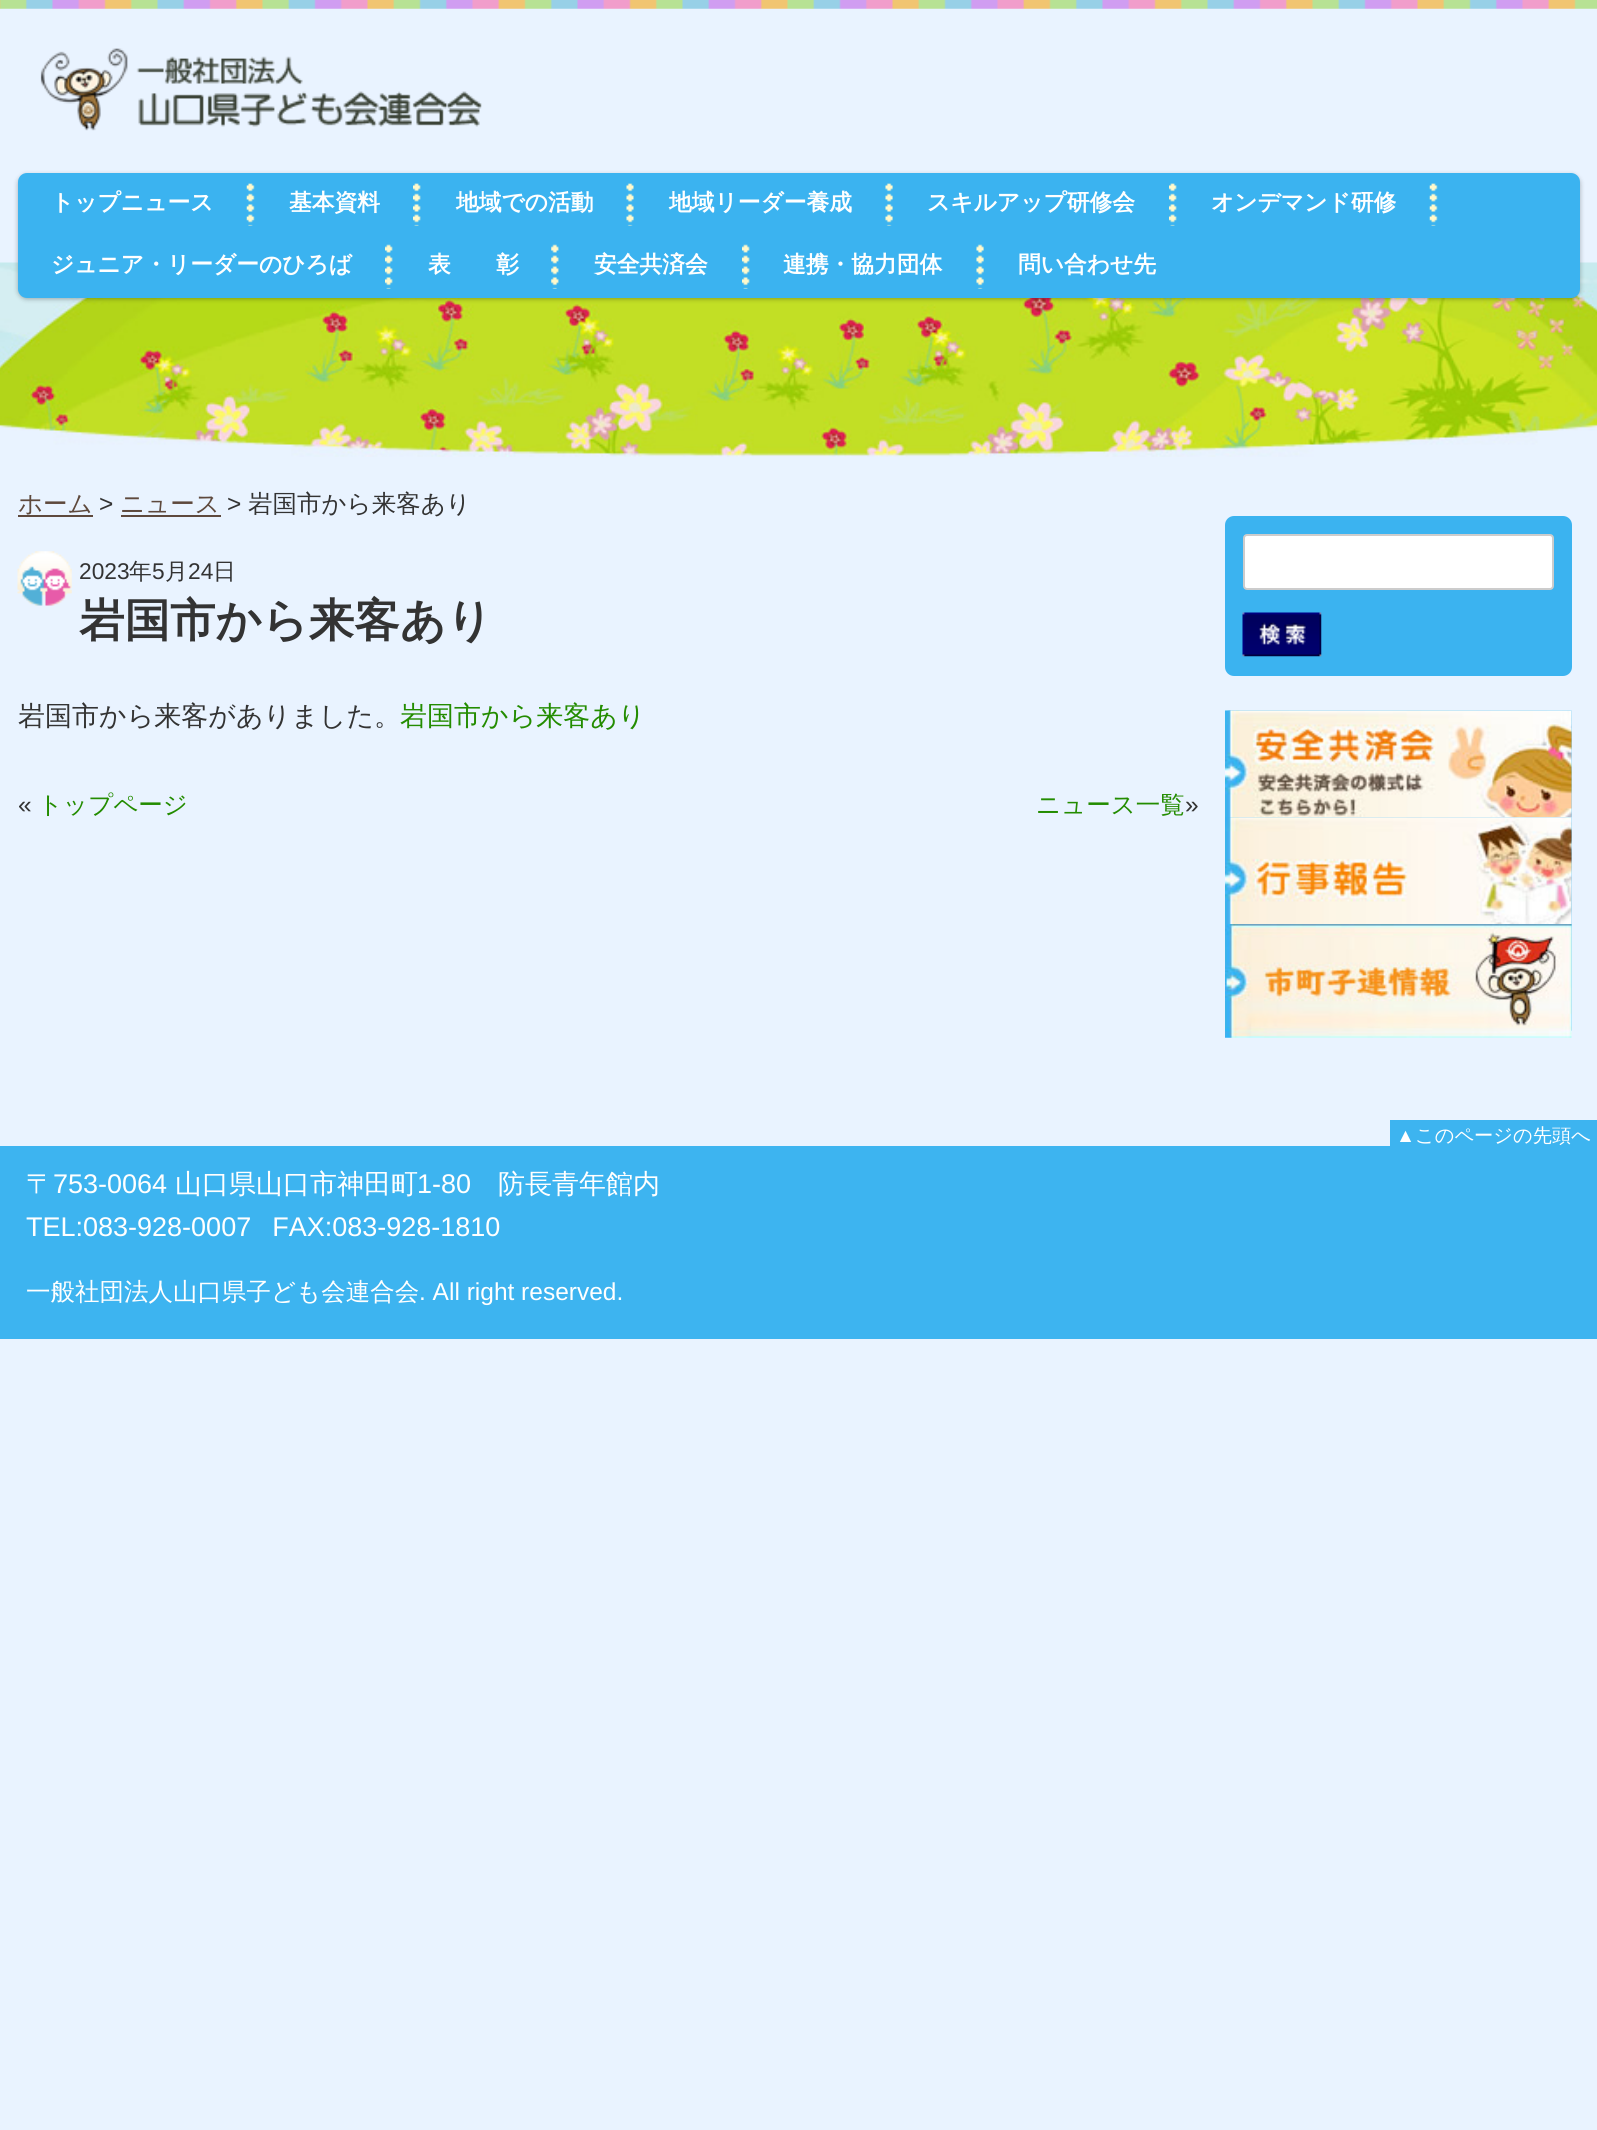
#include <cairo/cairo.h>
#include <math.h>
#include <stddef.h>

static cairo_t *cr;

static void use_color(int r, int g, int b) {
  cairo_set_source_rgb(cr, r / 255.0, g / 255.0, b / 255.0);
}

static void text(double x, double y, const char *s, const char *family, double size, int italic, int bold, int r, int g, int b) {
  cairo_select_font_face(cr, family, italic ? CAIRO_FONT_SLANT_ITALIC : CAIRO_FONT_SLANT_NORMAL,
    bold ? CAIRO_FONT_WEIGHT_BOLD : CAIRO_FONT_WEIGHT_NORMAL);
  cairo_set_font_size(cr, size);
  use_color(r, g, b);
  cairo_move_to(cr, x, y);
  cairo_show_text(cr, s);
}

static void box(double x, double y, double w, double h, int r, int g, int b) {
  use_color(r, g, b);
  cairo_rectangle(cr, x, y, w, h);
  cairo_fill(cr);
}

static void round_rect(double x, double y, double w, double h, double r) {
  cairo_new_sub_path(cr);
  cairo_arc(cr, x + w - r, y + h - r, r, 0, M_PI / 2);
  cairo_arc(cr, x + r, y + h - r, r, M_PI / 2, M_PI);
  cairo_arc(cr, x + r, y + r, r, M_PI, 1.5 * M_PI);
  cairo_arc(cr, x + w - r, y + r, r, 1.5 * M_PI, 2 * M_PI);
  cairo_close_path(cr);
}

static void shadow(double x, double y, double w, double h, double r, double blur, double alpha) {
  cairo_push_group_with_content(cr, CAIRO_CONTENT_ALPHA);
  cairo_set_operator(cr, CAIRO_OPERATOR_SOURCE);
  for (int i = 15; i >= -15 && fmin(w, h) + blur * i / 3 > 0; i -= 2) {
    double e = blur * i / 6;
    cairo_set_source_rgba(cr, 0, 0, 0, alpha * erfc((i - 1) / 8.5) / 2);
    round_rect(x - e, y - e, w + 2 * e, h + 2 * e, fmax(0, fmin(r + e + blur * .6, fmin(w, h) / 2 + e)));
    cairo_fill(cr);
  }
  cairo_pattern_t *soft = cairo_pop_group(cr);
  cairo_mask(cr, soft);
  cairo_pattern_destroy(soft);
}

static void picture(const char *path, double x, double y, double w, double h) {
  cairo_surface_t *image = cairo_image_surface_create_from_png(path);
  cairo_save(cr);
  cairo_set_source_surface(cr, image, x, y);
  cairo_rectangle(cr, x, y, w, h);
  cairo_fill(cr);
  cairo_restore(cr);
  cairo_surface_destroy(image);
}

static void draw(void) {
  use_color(233, 243, 255);
  cairo_paint(cr);
  picture("img_01.png", 0, 0, 1597, 9);
  picture("img_02.png", 40, 48, 442, 83);
  picture("img_11.png", 0, 262, 1597, 195);
  use_color(0, 0, 0);
  shadow(18, 175, 1562, 124, 9, 2.5, 0.3);
  use_color(59, 179, 240);
  round_rect(18, 173, 1562, 125, 9);
  cairo_fill(cr);
  picture("img_03.png", 246, 183, 9, 43);
  picture("img_04.png", 413, 183, 8, 43);
  picture("img_05.png", 626, 183, 8, 43);
  picture("img_06.png", 885, 183, 8, 43);
  picture("img_04.png", 1169, 183, 8, 43);
  picture("img_07.png", 1429, 183, 9, 43);
  picture("img_08.png", 385, 244, 8, 45);
  picture("img_09.png", 551, 244, 8, 45);
  picture("img_08.png", 742, 244, 8, 45);
  picture("img_10.png", 976, 244, 8, 45);
  box(18, 515, 75, 2, 94, 73, 61);
  box(121, 515, 100, 2, 94, 73, 61);
  picture("img_12.png", 17, 551, 55, 55);
  use_color(59, 179, 240);
  round_rect(1225, 516, 347, 160, 9);
  cairo_fill(cr);
  use_color(255, 255, 255);
  round_rect(1244, 535, 309, 54, 3);
  cairo_fill_preserve(cr);
  use_color(204, 204, 204);
  cairo_stroke(cr);
  picture("img_13.png", 1242, 612, 80, 45);
  picture("img_14.png", 1225, 710, 347, 321);
  picture("img_15.png", 1225, 710, 347, 108);
  picture("img_16.png", 1225, 817, 347, 107);
  picture("img_17.png", 1225, 924, 347, 114);
  box(1390, 1120, 207, 26, 61, 180, 240);
  box(0, 1146, 1597, 193, 61, 180, 240);
  text(51, 210, "トップニュース", "WenQuanYi Zen Hei", 22.75, 0, 1, 255, 255, 255);
  text(289, 210, "基本資料", "WenQuanYi Zen Hei", 22.75, 0, 1, 255, 255, 255);
  text(456, 210, "地域での活動", "WenQuanYi Zen Hei", 22.75, 0, 1, 255, 255, 255);
  text(669, 210, "地域リーダー養成", "WenQuanYi Zen Hei", 22.75, 0, 1, 255, 255, 255);
  text(927, 210, "スキルアップ研修会", "WenQuanYi Zen Hei", 22.75, 0, 1, 255, 255, 255);
  text(1211, 210, "オンデマンド研修", "WenQuanYi Zen Hei", 22.75, 0, 1, 255, 255, 255);
  text(51, 272, "ジュニア・リーダーのひろば", "WenQuanYi Zen Hei", 22.75, 0, 1, 255, 255, 255);
  text(428, 272, "表　　彰", "WenQuanYi Zen Hei", 22.75, 0, 1, 255, 255, 255);
  text(594, 272, "安全共済会", "WenQuanYi Zen Hei", 22.75, 0, 1, 255, 255, 255);
  text(783, 272, "連携・協力団体", "WenQuanYi Zen Hei", 22.75, 0, 1, 255, 255, 255);
  text(1018, 272, "問い合わせ先", "WenQuanYi Zen Hei", 22.75, 0, 1, 255, 255, 255);
  text(18, 512, "ホーム", "WenQuanYi Zen Hei Medium", 24.5, 0, 0, 94, 73, 61);
  text(99, 512, ">", "Liberation Sans", 24.5, 0, 0, 51, 51, 51);
  text(120, 512, "ニュース", "WenQuanYi Zen Hei Medium", 24.5, 0, 0, 94, 73, 61);
  text(227, 512, ">", "Liberation Sans", 24.5, 0, 0, 51, 51, 51);
  text(248, 512, "岩国市から来客あり", "WenQuanYi Zen Hei Medium", 24.5, 0, 0, 51, 51, 51);
  text(79, 579, "2023", "Liberation Sans", 22.75, 0, 0, 51, 51, 51);
  text(129, 579, "年", "WenQuanYi Zen Hei Medium", 22.75, 0, 0, 51, 51, 51);
  text(152, 579, "5", "Liberation Sans", 22.75, 0, 0, 51, 51, 51);
  text(165, 579, "月", "WenQuanYi Zen Hei Medium", 22.75, 0, 0, 51, 51, 51);
  text(188, 579, "24", "Liberation Sans", 22.75, 0, 0, 51, 51, 51);
  text(213, 579, "日", "WenQuanYi Zen Hei Medium", 22.75, 0, 0, 51, 51, 51);
  text(79, 636, "岩国市から来客あり", "WenQuanYi Zen Hei", 45.5, 0, 1, 51, 51, 51);
  text(18, 725, "岩国市から来客がありました。", "WenQuanYi Zen Hei Medium", 27, 0, 0, 51, 51, 51);
  text(400, 725, "岩国市から来客あり", "WenQuanYi Zen Hei Medium", 27, 0, 0, 35, 140, 0);
  text(18, 813, "«", "Liberation Sans", 24.5, 0, 0, 51, 51, 51);
  text(38, 813, "トップページ", "WenQuanYi Zen Hei Medium", 24.5, 0, 0, 35, 140, 0);
  text(1036, 813, "ニュース一覧", "WenQuanYi Zen Hei Medium", 24.5, 0, 0, 35, 140, 0);
  text(1185, 813, "»", "Liberation Sans", 24.5, 0, 0, 51, 51, 51);
  text(1396, 1142, "▲", "Liberation Sans", 19.25, 0, 0, 255, 255, 255);
  text(1415, 1142, "このページの先頭へ", "WenQuanYi Zen Hei Medium", 19.25, 0, 0, 255, 255, 255);
  text(26, 1193, "〒", "WenQuanYi Zen Hei Medium", 27, 0, 0, 255, 255, 255);
  text(53, 1193, "753-0064", "Liberation Sans", 27, 0, 0, 255, 255, 255);
  text(175, 1193, "山口県山口市神田町", "WenQuanYi Zen Hei Medium", 27, 0, 0, 255, 255, 255);
  text(417, 1193, "1-80", "Liberation Sans", 27, 0, 0, 255, 255, 255);
  text(498, 1193, "防長青年館内", "WenQuanYi Zen Hei Medium", 27, 0, 0, 255, 255, 255);
  text(26, 1236, "TEL:083-928-0007  FAX:083-928-1810", "Liberation Sans", 27, 0, 0, 255, 255, 255);
  text(26, 1300, "一般社団法人山口県子ども会連合会", "WenQuanYi Zen Hei Medium", 24.5, 0, 0, 255, 255, 255);
  text(419, 1300, ". All right reserved.", "Liberation Sans", 24.5, 0, 0, 255, 255, 255);
}

int main(void) {
  cairo_surface_t *surface = cairo_image_surface_create(CAIRO_FORMAT_RGB24, 1597, 2130);
  cr = cairo_create(surface);
  cairo_font_options_t *options = cairo_font_options_create();
  cairo_font_options_set_hint_metrics(options, CAIRO_HINT_METRICS_OFF);
  cairo_font_options_set_hint_style(options, CAIRO_HINT_STYLE_NONE);
  cairo_set_font_options(cr, options);
  cairo_set_miter_limit(cr, 4);
  draw();
  cairo_surface_write_to_png(surface, "out.png");
  cairo_font_options_destroy(options);
  cairo_destroy(cr);
  cairo_surface_destroy(surface);
  return 0;
}
